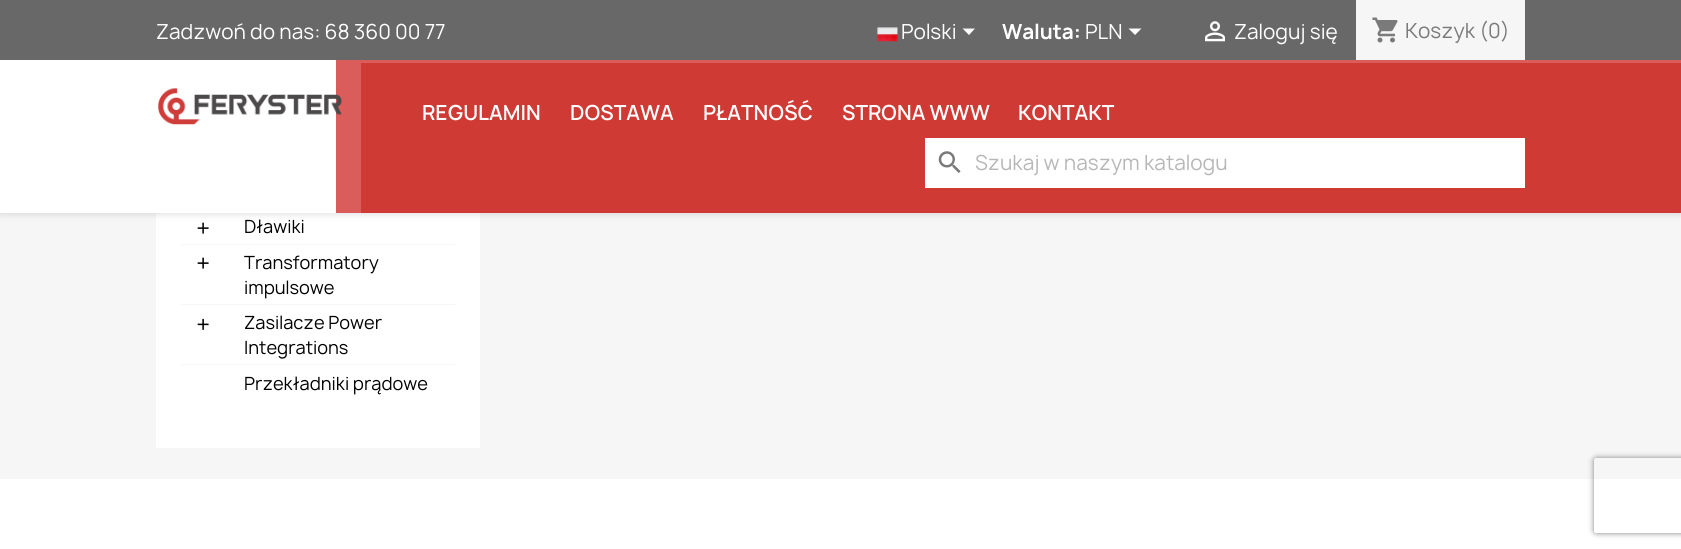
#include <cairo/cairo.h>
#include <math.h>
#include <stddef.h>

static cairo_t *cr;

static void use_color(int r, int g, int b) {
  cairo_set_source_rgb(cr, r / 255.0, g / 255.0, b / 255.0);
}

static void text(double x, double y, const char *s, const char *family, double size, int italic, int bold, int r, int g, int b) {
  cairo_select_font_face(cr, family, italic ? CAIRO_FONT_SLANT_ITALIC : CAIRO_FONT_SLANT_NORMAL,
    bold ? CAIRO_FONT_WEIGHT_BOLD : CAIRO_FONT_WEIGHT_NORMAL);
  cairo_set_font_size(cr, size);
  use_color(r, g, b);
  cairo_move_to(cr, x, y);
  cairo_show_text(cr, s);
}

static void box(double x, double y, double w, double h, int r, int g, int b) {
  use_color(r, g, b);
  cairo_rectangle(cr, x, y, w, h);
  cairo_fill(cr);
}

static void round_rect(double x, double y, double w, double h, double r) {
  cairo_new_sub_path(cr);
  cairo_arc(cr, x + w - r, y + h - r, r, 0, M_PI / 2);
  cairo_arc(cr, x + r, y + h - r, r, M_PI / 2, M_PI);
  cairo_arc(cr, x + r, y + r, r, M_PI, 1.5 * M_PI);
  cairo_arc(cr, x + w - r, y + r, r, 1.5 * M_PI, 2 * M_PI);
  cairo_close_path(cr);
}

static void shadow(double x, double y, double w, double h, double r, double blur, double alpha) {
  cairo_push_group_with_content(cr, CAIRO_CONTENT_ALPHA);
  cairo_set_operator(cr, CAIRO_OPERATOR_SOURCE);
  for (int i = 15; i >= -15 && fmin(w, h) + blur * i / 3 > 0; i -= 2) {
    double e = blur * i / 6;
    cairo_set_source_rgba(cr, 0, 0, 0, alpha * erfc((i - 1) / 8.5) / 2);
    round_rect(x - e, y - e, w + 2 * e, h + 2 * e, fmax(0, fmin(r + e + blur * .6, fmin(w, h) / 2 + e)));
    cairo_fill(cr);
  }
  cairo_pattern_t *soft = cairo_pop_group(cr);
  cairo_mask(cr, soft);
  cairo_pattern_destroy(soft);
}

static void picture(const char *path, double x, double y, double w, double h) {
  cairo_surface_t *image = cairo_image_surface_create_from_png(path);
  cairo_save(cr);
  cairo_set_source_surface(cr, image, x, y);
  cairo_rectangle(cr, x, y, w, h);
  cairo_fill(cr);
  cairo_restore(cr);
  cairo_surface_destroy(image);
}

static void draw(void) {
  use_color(255, 255, 255);
  cairo_paint(cr);
  box(0, 213, 1681, 266, 246, 246, 246);
  box(156, 213, 324, 235, 255, 255, 255);
  picture("img_06.png", 197, 222, 12, 12);
  use_color(0, 0, 0);
  shadow(0, 3, 1681, 212, 0, 3, 0.11);
  box(0, 60, 336, 153, 255, 255, 255);
  box(361, 63, 1320, 150, 208, 58, 53);
  box(0, 0, 1681, 60, 104, 104, 104);
  picture("img_01.png", 877, 27, 21, 15);
  use_color(255, 255, 255);
  cairo_new_path(cr);
  cairo_move_to(cr, 962.5, 28.5);
  cairo_line_to(cr, 975, 28.5);
  cairo_line_to(cr, 969, 35);
  cairo_close_path(cr);
  cairo_fill(cr);
  cairo_new_path(cr);
  cairo_move_to(cr, 1128.5, 28.5);
  cairo_line_to(cr, 1141.5, 28.5);
  cairo_line_to(cr, 1135, 35);
  cairo_close_path(cr);
  cairo_fill(cr);
  picture("img_02.png", 1205, 21, 20, 21);
  box(1356, 0, 169, 60, 246, 246, 246);
  picture("img_03.png", 1372, 17, 26, 26);
  box(336, 60, 1345, 3, 219, 93, 91);
  box(336, 63, 25, 150, 219, 93, 91);
  picture("img_04.png", 158, 87, 184, 38);
  box(925, 138, 600, 50, 255, 255, 255);
  picture("img_05.png", 938, 151, 23, 22);
  box(181, 244, 274, 1, 246, 246, 246);
  picture("img_06.png", 197, 257, 12, 12);
  box(181, 304, 274, 1, 246, 246, 246);
  picture("img_07.png", 197, 318, 12, 12);
  box(181, 364, 274, 1, 246, 246, 246);
  cairo_save(cr);
  cairo_set_fill_rule(cr, CAIRO_FILL_RULE_EVEN_ODD);
  cairo_new_path(cr);
  cairo_move_to(cr, 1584, 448);
  cairo_line_to(cr, 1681, 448);
  cairo_line_to(cr, 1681, 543);
  cairo_line_to(cr, 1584, 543);
  cairo_close_path(cr);
  cairo_move_to(cr, 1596.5, 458);
  cairo_line_to(cr, 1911.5, 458);
  cairo_curve_to(cr, 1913, 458, 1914, 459, 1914, 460.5);
  cairo_line_to(cr, 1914, 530.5);
  cairo_curve_to(cr, 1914, 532, 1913, 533, 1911.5, 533);
  cairo_line_to(cr, 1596.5, 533);
  cairo_curve_to(cr, 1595, 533, 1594, 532, 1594, 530.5);
  cairo_line_to(cr, 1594, 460.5);
  cairo_curve_to(cr, 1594, 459, 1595, 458, 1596.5, 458);
  cairo_close_path(cr);
  cairo_clip(cr);
  use_color(128, 128, 128);
  shadow(1594, 458, 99, 75, 2.5, 3, 1);
  cairo_restore(cr);
  text(156, 39, "Zadzwoń do nas: 68 360 00 77", "Manrope", 20, 0, 0, 255, 255, 255);
  text(901, 39, "Polski", "Manrope", 20, 0, 0, 255, 255, 255);
  text(1002, 39, "Waluta:", "Manrope", 20, 0, 1, 255, 255, 255);
  text(1085, 39, "PLN", "Manrope", 20, 0, 0, 255, 255, 255);
  text(1234, 39, "Zaloguj się", "Manrope", 20, 0, 0, 255, 255, 255);
  text(1405, 38, "Koszyk (0)", "Manrope", 20, 0, 0, 122, 122, 122);
  text(422, 120, "REGULAMIN", "Manrope SemiBold", 20, 0, 0, 255, 255, 255);
  text(570, 120, "DOSTAWA", "Manrope SemiBold", 20, 0, 0, 255, 255, 255);
  text(703, 120, "PŁATNOŚĆ", "Manrope SemiBold", 20, 0, 0, 255, 255, 255);
  text(842, 120, "STRONA WWW", "Manrope SemiBold", 20, 0, 0, 255, 255, 255);
  text(1018, 120, "KONTAKT", "Manrope SemiBold", 20, 0, 0, 255, 255, 255);
  text(975, 170, "Szukaj w naszym katalogu", "Manrope", 20, 0, 0, 183, 183, 183);
  text(244, 233, "Dławiki", "Manrope", 17.5, 0, 0, 0, 0, 0);
  text(244, 269, "Transformatory", "Manrope", 17.5, 0, 0, 0, 0, 0);
  text(244, 294, "impulsowe", "Manrope", 17.5, 0, 0, 0, 0, 0);
  text(244, 329, "Zasilacze Power", "Manrope", 17.5, 0, 0, 0, 0, 0);
  text(244, 354, "Integrations", "Manrope", 17.5, 0, 0, 0, 0, 0);
  text(244, 390, "Przekładniki prądowe", "Manrope", 17.5, 0, 0, 0, 0, 0);
}

int main(void) {
  cairo_surface_t *surface = cairo_image_surface_create(CAIRO_FORMAT_RGB24, 1681, 549);
  cr = cairo_create(surface);
  cairo_font_options_t *options = cairo_font_options_create();
  cairo_font_options_set_hint_metrics(options, CAIRO_HINT_METRICS_OFF);
  cairo_font_options_set_hint_style(options, CAIRO_HINT_STYLE_NONE);
  cairo_set_font_options(cr, options);
  cairo_set_miter_limit(cr, 4);
  draw();
  cairo_surface_write_to_png(surface, "out.png");
  cairo_font_options_destroy(options);
  cairo_destroy(cr);
  cairo_surface_destroy(surface);
  return 0;
}
